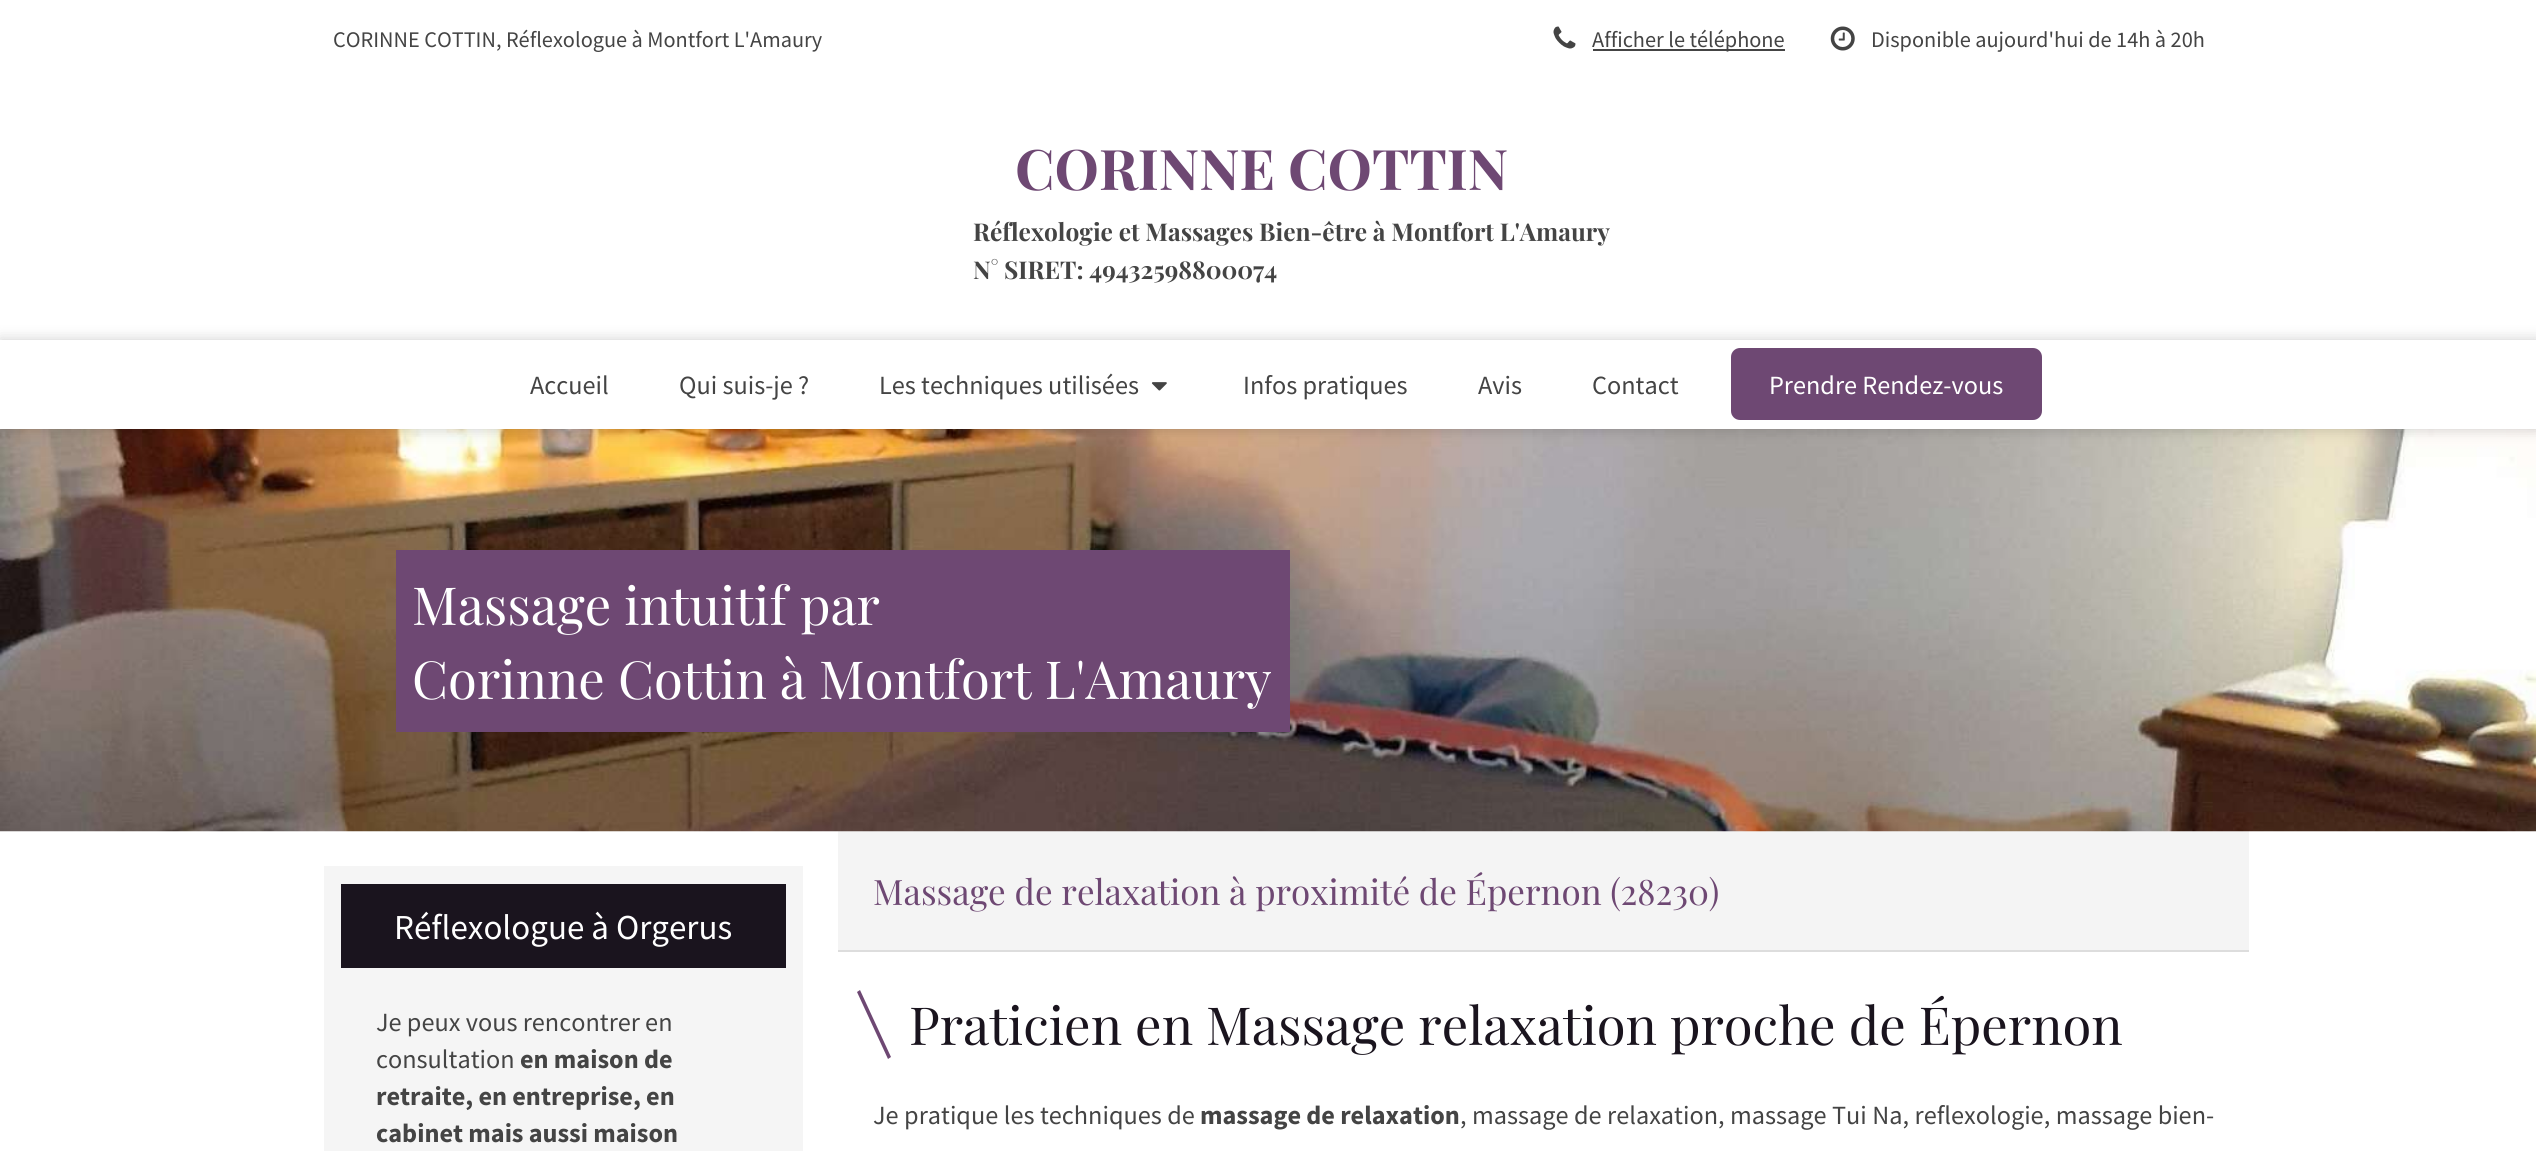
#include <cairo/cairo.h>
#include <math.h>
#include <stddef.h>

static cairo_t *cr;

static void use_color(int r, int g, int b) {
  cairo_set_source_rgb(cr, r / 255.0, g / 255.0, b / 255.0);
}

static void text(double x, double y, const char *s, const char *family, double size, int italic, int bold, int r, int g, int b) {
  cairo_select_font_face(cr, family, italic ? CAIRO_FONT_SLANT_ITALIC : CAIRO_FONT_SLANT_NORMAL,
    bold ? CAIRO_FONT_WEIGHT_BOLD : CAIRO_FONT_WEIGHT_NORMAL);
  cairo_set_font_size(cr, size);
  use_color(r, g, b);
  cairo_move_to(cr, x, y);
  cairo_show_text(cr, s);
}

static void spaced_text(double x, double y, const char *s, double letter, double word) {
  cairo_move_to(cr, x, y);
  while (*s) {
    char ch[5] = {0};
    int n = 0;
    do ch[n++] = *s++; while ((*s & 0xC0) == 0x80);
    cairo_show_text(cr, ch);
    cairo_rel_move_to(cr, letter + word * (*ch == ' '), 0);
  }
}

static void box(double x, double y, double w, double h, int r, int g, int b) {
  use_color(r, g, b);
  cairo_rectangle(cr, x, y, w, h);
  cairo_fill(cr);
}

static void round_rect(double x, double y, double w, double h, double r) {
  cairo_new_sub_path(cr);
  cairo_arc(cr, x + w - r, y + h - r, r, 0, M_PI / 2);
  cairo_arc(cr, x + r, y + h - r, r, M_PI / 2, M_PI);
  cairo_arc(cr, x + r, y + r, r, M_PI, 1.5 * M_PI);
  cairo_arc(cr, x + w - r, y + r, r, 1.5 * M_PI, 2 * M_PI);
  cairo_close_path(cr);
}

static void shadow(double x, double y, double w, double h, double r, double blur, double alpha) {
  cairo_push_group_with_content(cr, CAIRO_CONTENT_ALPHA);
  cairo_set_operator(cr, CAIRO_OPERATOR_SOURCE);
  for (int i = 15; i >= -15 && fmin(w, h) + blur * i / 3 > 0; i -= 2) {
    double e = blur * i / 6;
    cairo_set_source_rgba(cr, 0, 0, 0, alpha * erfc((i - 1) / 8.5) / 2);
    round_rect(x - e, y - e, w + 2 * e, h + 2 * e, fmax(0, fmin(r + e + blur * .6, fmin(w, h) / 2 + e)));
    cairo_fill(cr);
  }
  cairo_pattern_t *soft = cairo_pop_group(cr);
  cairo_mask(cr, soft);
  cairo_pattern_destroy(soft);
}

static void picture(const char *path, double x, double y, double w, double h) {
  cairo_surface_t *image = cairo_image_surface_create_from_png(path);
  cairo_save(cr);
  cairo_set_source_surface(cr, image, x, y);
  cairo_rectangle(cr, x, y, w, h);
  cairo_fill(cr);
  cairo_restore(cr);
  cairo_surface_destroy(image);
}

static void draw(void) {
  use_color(255, 255, 255);
  cairo_paint(cr);
  picture("img_01.png", 1553, 26, 23, 23);
  box(1593, 49, 192, 2, 68, 68, 68);
  picture("img_02.png", 1830, 26, 25, 25);
  box(838, 831, 1411, 119, 244, 244, 244);
  picture("img_04.png", 0, 429, 2536, 403);
  use_color(0, 0, 0);
  shadow(0, 340, 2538, 89, 0, 7, 0.2);
  box(0, 340, 2536, 89, 255, 255, 255);
  picture("img_03.png", 1151, 382, 16, 9);
  use_color(110, 72, 115);
  round_rect(1731, 348, 311, 72, 9);
  cairo_fill(cr);
  box(396, 550, 894, 182, 110, 72, 115);
  box(324, 866, 479, 285, 245, 245, 245);
  box(341, 884, 445, 84, 26, 20, 30);
  box(838, 950, 1411, 2, 221, 221, 221);
  use_color(110, 72, 115);
  cairo_new_path(cr);
  cairo_move_to(cr, 857, 992);
  cairo_line_to(cr, 860, 990);
  cairo_line_to(cr, 891, 1057);
  cairo_line_to(cr, 888, 1059);
  cairo_close_path(cr);
  cairo_fill(cr);
  text(333, 47, "CORINNE COTTIN, Réflexologue à Montfort L'Amaury", "Source Sans Pro", 22.3, 0, 0, 68, 68, 68);
  text(1592, 47, "Afficher le téléphone", "Source Sans Pro", 22.3, 0, 0, 68, 68, 68);
  text(1871, 47, "Disponible aujourd'hui de 14h à 20h", "Source Sans Pro", 22.3, 0, 0, 68, 68, 68);
  text(1015, 190, "CORINNE COTTIN", "Playfair Display", 56, 0, 1, 110, 72, 115);
  text(973, 241, "Réflexologie et Massages Bien-être à Montfort L'Amaury", "Playfair Display", 24.5, 0, 1, 68, 68, 68);
  text(973, 279, "N° SIRET: 49432598800074", "Playfair Display", 24.5, 0, 1, 68, 68, 68);
  text(530, 394, "Accueil", "Source Sans Pro", 26.25, 0, 0, 68, 68, 68);
  text(679, 394, "Qui suis-je ?", "Source Sans Pro", 26.25, 0, 0, 68, 68, 68);
  text(879, 394, "Les techniques utilisées", "Source Sans Pro", 26.25, 0, 0, 68, 68, 68);
  text(1243, 394, "Infos pratiques", "Source Sans Pro", 26.25, 0, 0, 68, 68, 68);
  text(1478, 394, "Avis", "Source Sans Pro", 26.25, 0, 0, 68, 68, 68);
  text(1592, 394, "Contact", "Source Sans Pro", 26.25, 0, 0, 68, 68, 68);
  text(1769, 394, "Prendre Rendez-vous", "Source Sans Pro", 26.25, 0, 0, 255, 255, 255);
  text(412, 625, "Massage intuitif par", "Playfair Display", 52.5, 0, 0, 255, 255, 255);
  text(412, 699, "Corinne Cottin à Montfort L'Amaury", "Playfair Display", 52.5, 0, 0, 255, 255, 255);
  text(394, 939, "Réflexologue à Orgerus", "Source Sans Pro", 35, 0, 0, 255, 255, 255);
  text(376, 1031, "Je peux vous rencontrer en", "Source Sans Pro", 26.25, 0, 0, 68, 68, 68);
  text(376, 1068, "consultation", "Source Sans Pro", 26.25, 0, 0, 68, 68, 68);
  text(520, 1068, "en maison de", "Source Sans Pro", 26.25, 0, 1, 68, 68, 68);
  text(376, 1105, "retraite, en entreprise, en", "Source Sans Pro", 26.25, 0, 1, 68, 68, 68);
  text(376, 1142, "cabinet mais aussi maison", "Source Sans Pro", 26.25, 0, 1, 68, 68, 68);
  text(873, 905, "Massage de relaxation à proximité de Épernon (28230)", "Playfair Display", 35, 0, 0, 110, 72, 115);
  text(909, 1045, "Praticien en Massage relaxation proche de Épernon", "Playfair Display", 52.5, 0, 0, 26, 20, 30);
  cairo_select_font_face(cr, "Source Sans Pro", CAIRO_FONT_SLANT_NORMAL, CAIRO_FONT_WEIGHT_NORMAL);
  cairo_set_font_size(cr, 26.25);
  use_color(68, 68, 68);
  spaced_text(873, 1124, "Je pratique les techniques de", 0, 0.25);
  text(1200, 1124, "massage de relaxation", "Source Sans Pro", 26.25, 0, 1, 68, 68, 68);
  cairo_select_font_face(cr, "Source Sans Pro", CAIRO_FONT_SLANT_NORMAL, CAIRO_FONT_WEIGHT_NORMAL);
  spaced_text(1460, 1124, ", massage de relaxation, massage Tui Na, reflexologie, massage bien-", 0, 0.25);
}

int main(void) {
  cairo_surface_t *surface = cairo_image_surface_create(CAIRO_FORMAT_RGB24, 2536, 1151);
  cr = cairo_create(surface);
  cairo_font_options_t *options = cairo_font_options_create();
  cairo_font_options_set_hint_metrics(options, CAIRO_HINT_METRICS_OFF);
  cairo_font_options_set_hint_style(options, CAIRO_HINT_STYLE_NONE);
  cairo_set_font_options(cr, options);
  cairo_set_miter_limit(cr, 4);
  draw();
  cairo_surface_write_to_png(surface, "out.png");
  cairo_font_options_destroy(options);
  cairo_destroy(cr);
  cairo_surface_destroy(surface);
  return 0;
}
